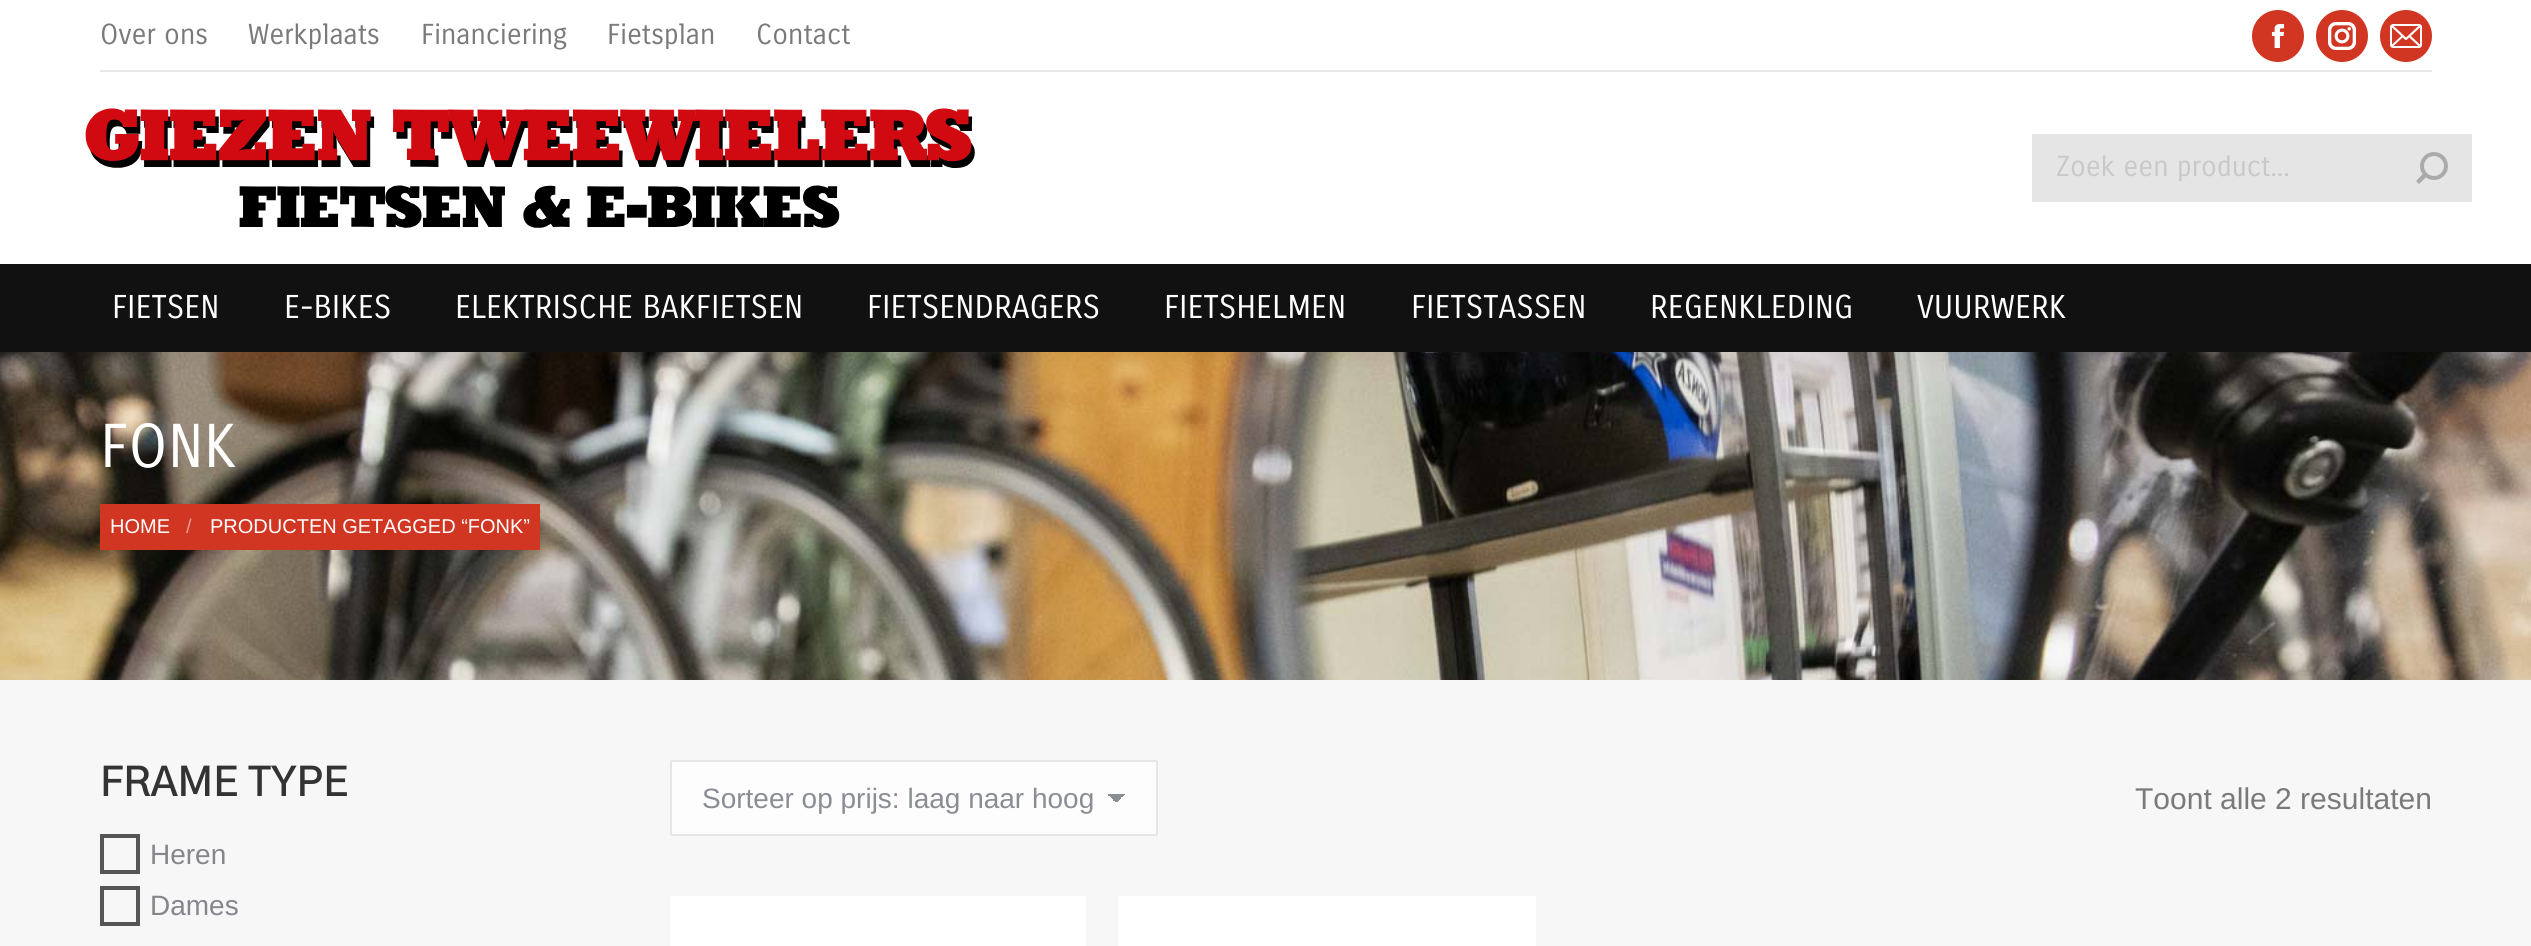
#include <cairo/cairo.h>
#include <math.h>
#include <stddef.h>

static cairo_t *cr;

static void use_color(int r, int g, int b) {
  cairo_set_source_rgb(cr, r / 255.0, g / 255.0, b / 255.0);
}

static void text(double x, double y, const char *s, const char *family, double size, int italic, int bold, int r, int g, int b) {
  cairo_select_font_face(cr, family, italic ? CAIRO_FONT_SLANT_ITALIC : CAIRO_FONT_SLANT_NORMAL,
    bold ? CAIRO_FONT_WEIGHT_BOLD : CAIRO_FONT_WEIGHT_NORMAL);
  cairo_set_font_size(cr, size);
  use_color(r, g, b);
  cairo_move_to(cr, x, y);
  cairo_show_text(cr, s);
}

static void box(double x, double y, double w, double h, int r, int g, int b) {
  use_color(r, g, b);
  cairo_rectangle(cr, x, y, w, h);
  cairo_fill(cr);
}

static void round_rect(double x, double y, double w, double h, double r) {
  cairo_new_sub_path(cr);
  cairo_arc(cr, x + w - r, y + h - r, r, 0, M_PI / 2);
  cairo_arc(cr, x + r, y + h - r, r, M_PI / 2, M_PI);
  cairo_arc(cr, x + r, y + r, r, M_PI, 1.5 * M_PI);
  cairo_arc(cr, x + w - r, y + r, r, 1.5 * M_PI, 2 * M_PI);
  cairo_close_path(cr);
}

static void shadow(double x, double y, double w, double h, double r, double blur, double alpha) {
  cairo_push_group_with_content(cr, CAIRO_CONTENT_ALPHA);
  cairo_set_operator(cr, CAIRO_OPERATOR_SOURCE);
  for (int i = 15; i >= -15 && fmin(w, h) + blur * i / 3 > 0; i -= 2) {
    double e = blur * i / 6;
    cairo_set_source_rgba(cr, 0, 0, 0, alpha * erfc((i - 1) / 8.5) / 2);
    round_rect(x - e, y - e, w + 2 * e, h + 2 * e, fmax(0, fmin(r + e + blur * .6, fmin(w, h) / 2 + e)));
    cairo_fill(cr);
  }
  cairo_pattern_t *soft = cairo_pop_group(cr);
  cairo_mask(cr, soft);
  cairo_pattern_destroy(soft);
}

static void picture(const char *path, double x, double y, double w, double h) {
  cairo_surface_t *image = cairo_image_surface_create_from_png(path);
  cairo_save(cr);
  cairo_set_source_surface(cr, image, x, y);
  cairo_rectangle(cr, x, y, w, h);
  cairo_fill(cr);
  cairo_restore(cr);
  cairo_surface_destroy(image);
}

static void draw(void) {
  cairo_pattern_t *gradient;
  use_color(247, 247, 247);
  cairo_paint(cr);
  picture("img_06.png", 0, 352, 2531, 328);
  use_color(0, 0, 0);
  shadow(-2, -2, 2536, 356, 0, 15, 0.07);
  box(0, 0, 2531, 264, 255, 255, 255);
  use_color(209, 54, 34);
  cairo_arc(cr, 2278, 36, 26, 0, 2 * M_PI);
  cairo_fill(cr);
  picture("img_01.png", 2271, 24, 14, 24);
  cairo_arc(cr, 2342, 36, 26, 0, 2 * M_PI);
  cairo_fill(cr);
  picture("img_02.png", 2328, 22, 28, 28);
  cairo_arc(cr, 2406, 36, 26, 0, 2 * M_PI);
  cairo_fill(cr);
  picture("img_03.png", 2390, 24, 32, 24);
  box(100, 70, 2332, 2, 231, 231, 231);
  picture("img_04.png", 85, 108, 890, 120);
  box(2032, 134, 440, 68, 229, 229, 229);
  picture("img_05.png", 2416, 152, 32, 32);
  box(0, 264, 2531, 88, 17, 17, 17);
  box(100, 504, 440, 46, 209, 54, 34);
  cairo_rectangle(cr, 102, 836, 36, 36);
  use_color(85, 85, 85);
  cairo_set_line_width(cr, 4);
  cairo_stroke(cr);
  cairo_rectangle(cr, 102, 888, 36, 36);
  cairo_stroke(cr);
  use_color(253, 253, 253);
  round_rect(670, 760, 488, 76, 2);
  cairo_fill(cr);
  gradient = cairo_pattern_create_linear(1116, 793, 1126, 803);
  cairo_pattern_add_color_stop_rgba(gradient, 0.5, 0.545, 0.553, 0.58, 1);
  cairo_pattern_add_color_stop_rgba(gradient, 0.5, 0.992, 0.992, 0.992, 1);
  cairo_set_source(cr, gradient);
  cairo_pattern_destroy(gradient);
  cairo_rectangle(cr, 1116, 794, 9, 8);
  cairo_fill(cr);
  gradient = cairo_pattern_create_linear(1106, 803, 1116, 793);
  cairo_pattern_add_color_stop_rgba(gradient, 0.5, 0.992, 0.992, 0.992, 1);
  cairo_pattern_add_color_stop_rgba(gradient, 0.5, 0.545, 0.553, 0.58, 1);
  cairo_set_source(cr, gradient);
  cairo_pattern_destroy(gradient);
  cairo_rectangle(cr, 1108, 794, 8, 8);
  cairo_fill(cr);
  round_rect(671, 761, 486, 74, 1);
  use_color(229, 229, 229);
  cairo_set_line_width(cr, 2);
  cairo_stroke(cr);
  box(670, 896, 416, 50, 255, 255, 255);
  box(1118, 896, 418, 50, 255, 255, 255);
  text(100, 44, "Over ons", "Carrois Gothic", 28, 0, 0, 122, 122, 122);
  text(248, 44, "Werkplaats", "Carrois Gothic", 28, 0, 0, 122, 122, 122);
  text(421, 44, "Financiering", "Carrois Gothic", 28, 0, 0, 122, 122, 122);
  text(607, 44, "Fietsplan", "Carrois Gothic", 28, 0, 0, 122, 122, 122);
  text(756, 44, "Contact", "Carrois Gothic", 28, 0, 0, 122, 122, 122);
  text(2056, 176, "Zoek een product...", "Carrois Gothic", 28, 0, 0, 200, 200, 200);
  text(112, 318, "FIETSEN", "Carrois Gothic", 32, 0, 0, 255, 255, 255);
  text(284, 318, "E-BIKES", "Carrois Gothic", 32, 0, 0, 255, 255, 255);
  text(455, 318, "ELEKTRISCHE BAKFIETSEN", "Carrois Gothic", 32, 0, 0, 255, 255, 255);
  text(867, 318, "FIETSENDRAGERS", "Carrois Gothic", 32, 0, 0, 255, 255, 255);
  text(1164, 318, "FIETSHELMEN", "Carrois Gothic", 32, 0, 0, 255, 255, 255);
  text(1411, 318, "FIETSTASSEN", "Carrois Gothic", 32, 0, 0, 255, 255, 255);
  text(1650, 318, "REGENKLEDING", "Carrois Gothic", 32, 0, 0, 255, 255, 255);
  text(1917, 318, "VUURWERK", "Carrois Gothic", 32, 0, 0, 255, 255, 255);
  text(100, 467, "FONK", "Carrois Gothic", 60, 0, 0, 255, 255, 255);
  text(110, 533, "HOME", "Liberation Sans", 20, 0, 0, 255, 255, 255);
  text(186, 533, "/", "Liberation Sans", 20, 0, 0, 232, 155, 145);
  text(210, 533, "PRODUCTEN GETAGGED “FONK”", "Liberation Sans", 20, 0, 0, 255, 255, 255);
  text(100, 796, "FRAME TYPE", "Gothic A1 SemiBold", 40, 0, 0, 51, 51, 51);
  text(150, 864, "Heren", "Liberation Sans", 28, 0, 0, 133, 134, 140);
  text(150, 915, "Dames", "Liberation Sans", 28, 0, 0, 133, 134, 140);
  text(702, 808, "Sorteer op prijs: laag naar hoog", "Liberation Sans", 28, 0, 0, 139, 141, 148);
  text(2135, 809, "Toont alle 2 resultaten", "Liberation Sans", 30, 0, 0, 122, 122, 122);
}

int main(void) {
  cairo_surface_t *surface = cairo_image_surface_create(CAIRO_FORMAT_RGB24, 2531, 946);
  cr = cairo_create(surface);
  cairo_font_options_t *options = cairo_font_options_create();
  cairo_font_options_set_hint_metrics(options, CAIRO_HINT_METRICS_OFF);
  cairo_font_options_set_hint_style(options, CAIRO_HINT_STYLE_NONE);
  cairo_set_font_options(cr, options);
  cairo_set_miter_limit(cr, 4);
  draw();
  cairo_surface_write_to_png(surface, "out.png");
  cairo_font_options_destroy(options);
  cairo_destroy(cr);
  cairo_surface_destroy(surface);
  return 0;
}
